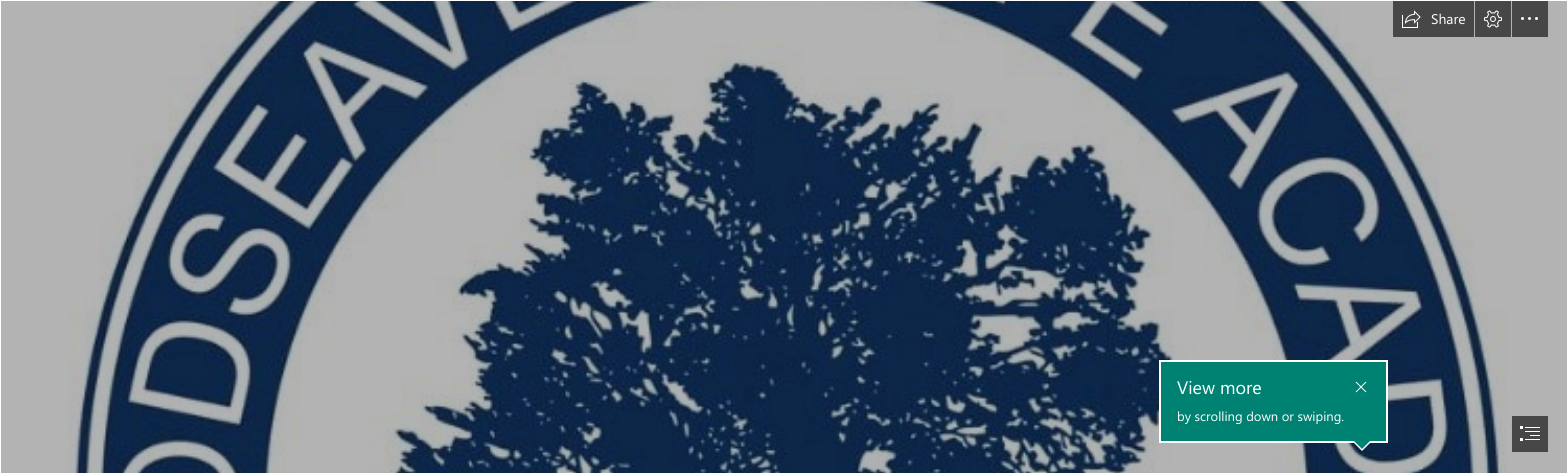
#include <cairo/cairo.h>
#include <math.h>
#include <stddef.h>

static cairo_t *cr;

static void use_color(int r, int g, int b) {
  cairo_set_source_rgb(cr, r / 255.0, g / 255.0, b / 255.0);
}

static void text(double x, double y, const char *s, const char *family, double size, int italic, int bold, int r, int g, int b) {
  cairo_select_font_face(cr, family, italic ? CAIRO_FONT_SLANT_ITALIC : CAIRO_FONT_SLANT_NORMAL,
    bold ? CAIRO_FONT_WEIGHT_BOLD : CAIRO_FONT_WEIGHT_NORMAL);
  cairo_set_font_size(cr, size);
  use_color(r, g, b);
  cairo_move_to(cr, x, y);
  cairo_show_text(cr, s);
}

static void box(double x, double y, double w, double h, int r, int g, int b) {
  use_color(r, g, b);
  cairo_rectangle(cr, x, y, w, h);
  cairo_fill(cr);
}

static void picture(const char *path, double x, double y, double w, double h) {
  cairo_surface_t *image = cairo_image_surface_create_from_png(path);
  cairo_save(cr);
  cairo_set_source_surface(cr, image, x, y);
  cairo_rectangle(cr, x, y, w, h);
  cairo_fill(cr);
  cairo_restore(cr);
  cairo_surface_destroy(image);
}

static void draw(void) {
  use_color(255, 255, 255);
  cairo_paint(cr);
  picture("img_04.png", 1, 1, 1566, 472);
  box(1393, 1, 81, 36, 71, 71, 71);
  picture("img_01.png", 1402, 10, 19, 18);
  box(1475, 1, 36, 36, 71, 71, 71);
  picture("img_02.png", 1484, 10, 18, 18);
  box(1512, 1, 36, 36, 71, 71, 71);
  picture("img_03.png", 1521, 17, 17, 3);
  use_color(0, 130, 114);
  cairo_rectangle(cr, 1160, 361, 227, 81);
  cairo_fill_preserve(cr);
  use_color(255, 255, 255);
  cairo_stroke(cr);
  picture("img_05.png", 1355, 381, 12, 12);
  cairo_new_path(cr);
  cairo_move_to(cr, 1352, 441);
  cairo_line_to(cr, 1372, 441);
  cairo_line_to(cr, 1362, 451);
  cairo_close_path(cr);
  cairo_fill(cr);
  use_color(0, 130, 114);
  cairo_new_path(cr);
  cairo_move_to(cr, 1354, 441);
  cairo_line_to(cr, 1370, 441);
  cairo_line_to(cr, 1362, 449);
  cairo_close_path(cr);
  cairo_fill(cr);
  box(1512, 416, 36, 36, 71, 71, 71);
  picture("img_06.png", 1520, 426, 20, 15);
  text(1431, 24, "Share", "Segoe UI", 14, 0, 0, 255, 255, 255);
  text(1177, 394, "View more", "Segoe UI", 18, 0, 0, 255, 255, 255);
  text(1177, 421, "by scrolling down or swiping.", "Segoe UI", 13, 0, 0, 255, 255, 255);
}

int main(void) {
  cairo_surface_t *surface = cairo_image_surface_create(CAIRO_FORMAT_RGB24, 1568, 473);
  cr = cairo_create(surface);
  cairo_font_options_t *options = cairo_font_options_create();
  cairo_font_options_set_hint_metrics(options, CAIRO_HINT_METRICS_OFF);
  cairo_font_options_set_hint_style(options, CAIRO_HINT_STYLE_NONE);
  cairo_set_font_options(cr, options);
  cairo_set_miter_limit(cr, 4);
  draw();
  cairo_surface_write_to_png(surface, "out.png");
  cairo_font_options_destroy(options);
  cairo_destroy(cr);
  cairo_surface_destroy(surface);
  return 0;
}
